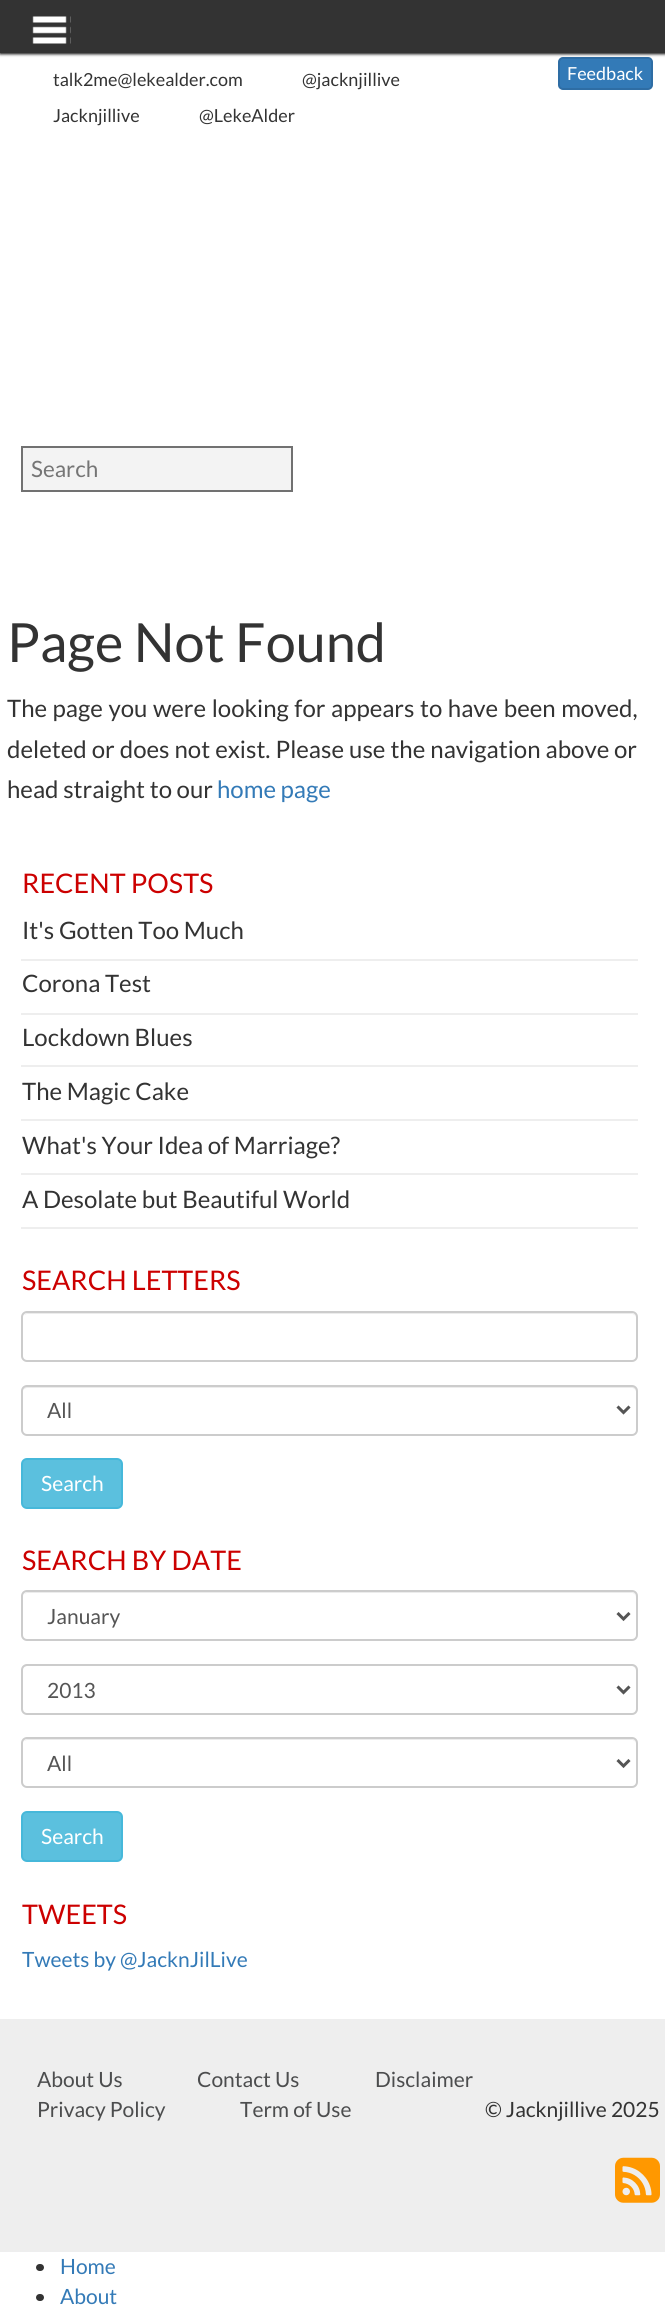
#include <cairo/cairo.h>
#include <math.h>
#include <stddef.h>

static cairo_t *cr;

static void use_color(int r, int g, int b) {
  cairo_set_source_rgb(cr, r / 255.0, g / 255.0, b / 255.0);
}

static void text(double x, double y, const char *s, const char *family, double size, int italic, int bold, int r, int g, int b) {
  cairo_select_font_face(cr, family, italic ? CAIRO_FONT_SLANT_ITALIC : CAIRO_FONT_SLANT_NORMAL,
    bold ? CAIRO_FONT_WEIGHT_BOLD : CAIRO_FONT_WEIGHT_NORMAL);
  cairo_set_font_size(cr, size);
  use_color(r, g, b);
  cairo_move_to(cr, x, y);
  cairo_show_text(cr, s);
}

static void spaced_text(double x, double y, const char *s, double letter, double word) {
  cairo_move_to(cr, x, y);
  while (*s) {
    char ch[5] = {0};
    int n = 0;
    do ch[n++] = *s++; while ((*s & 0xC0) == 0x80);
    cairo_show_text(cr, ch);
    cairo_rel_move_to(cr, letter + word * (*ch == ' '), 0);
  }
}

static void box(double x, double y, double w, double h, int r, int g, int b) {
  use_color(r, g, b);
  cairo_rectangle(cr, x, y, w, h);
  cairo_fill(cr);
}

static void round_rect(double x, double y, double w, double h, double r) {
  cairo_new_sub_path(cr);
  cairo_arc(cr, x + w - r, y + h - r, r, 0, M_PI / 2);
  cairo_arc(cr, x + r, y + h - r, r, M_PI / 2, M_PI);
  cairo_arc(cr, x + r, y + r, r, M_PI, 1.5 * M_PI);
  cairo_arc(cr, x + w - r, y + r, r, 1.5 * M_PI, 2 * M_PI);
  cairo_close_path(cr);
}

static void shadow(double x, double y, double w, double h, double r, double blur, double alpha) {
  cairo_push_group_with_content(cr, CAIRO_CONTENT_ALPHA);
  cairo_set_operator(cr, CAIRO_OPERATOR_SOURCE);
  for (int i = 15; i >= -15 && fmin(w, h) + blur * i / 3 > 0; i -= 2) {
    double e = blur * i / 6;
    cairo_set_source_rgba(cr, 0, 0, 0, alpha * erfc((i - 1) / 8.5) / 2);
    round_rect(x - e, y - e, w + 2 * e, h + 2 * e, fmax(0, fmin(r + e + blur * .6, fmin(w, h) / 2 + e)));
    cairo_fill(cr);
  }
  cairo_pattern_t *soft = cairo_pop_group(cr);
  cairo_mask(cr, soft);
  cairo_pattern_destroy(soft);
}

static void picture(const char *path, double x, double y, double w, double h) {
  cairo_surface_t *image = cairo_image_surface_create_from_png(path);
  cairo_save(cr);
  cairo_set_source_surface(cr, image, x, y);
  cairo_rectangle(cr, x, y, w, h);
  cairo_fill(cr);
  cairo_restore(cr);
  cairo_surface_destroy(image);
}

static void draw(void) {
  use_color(255, 255, 255);
  cairo_paint(cr);
  use_color(51, 122, 183);
  round_rect(559, 58, 93, 31, 4);
  cairo_fill_preserve(cr);
  use_color(46, 109, 164);
  cairo_stroke(cr);
  use_color(0, 0, 0);
  shadow(0, 2, 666, 52, 0, 1.5, 1);
  box(0, 0, 665, 53, 51, 51, 51);
  picture("img_01.png", 32, 16, 39, 28);
  use_color(243, 243, 243);
  cairo_rectangle(cr, 22, 447, 270, 44);
  cairo_fill_preserve(cr);
  use_color(113, 113, 113);
  cairo_stroke(cr);
  box(21, 959, 617, 2, 238, 238, 238);
  box(21, 1013, 617, 2, 238, 238, 238);
  box(21, 1065, 617, 2, 238, 238, 238);
  box(21, 1119, 617, 2, 238, 238, 238);
  box(21, 1173, 617, 2, 238, 238, 238);
  box(21, 1227, 617, 2, 238, 238, 238);
  use_color(236, 236, 236);
  cairo_new_path(cr);
  cairo_move_to(cr, 27, 1314);
  cairo_line_to(cr, 632, 1314);
  cairo_curve_to(cr, 634, 1314, 636, 1316, 636, 1318);
  cairo_curve_to(cr, 636, 1315, 634, 1313, 631, 1313);
  cairo_line_to(cr, 28, 1313);
  cairo_curve_to(cr, 26, 1313, 25, 1314, 24, 1315);
  cairo_close_path(cr);
  cairo_fill(cr);
  round_rect(22, 1312, 615, 49, 5);
  use_color(204, 204, 204);
  cairo_stroke(cr);
  use_color(236, 236, 236);
  cairo_new_path(cr);
  cairo_move_to(cr, 27, 1388);
  cairo_line_to(cr, 632, 1388);
  cairo_curve_to(cr, 634, 1388, 636, 1390, 636, 1392);
  cairo_line_to(cr, 636, 1391);
  cairo_curve_to(cr, 636, 1388, 634, 1386, 631, 1386);
  cairo_line_to(cr, 28, 1386);
  cairo_curve_to(cr, 26, 1386, 24, 1388, 23, 1390);
  cairo_curve_to(cr, 24, 1389, 26, 1388, 27, 1388);
  cairo_close_path(cr);
  cairo_fill(cr);
  round_rect(22, 1386, 615, 49, 5);
  use_color(204, 204, 204);
  cairo_stroke(cr);
  cairo_new_path(cr);
  cairo_move_to(cr, 617.5, 1406.5);
  cairo_line_to(cr, 623.5, 1412.5);
  cairo_line_to(cr, 629.5, 1406.5);
  use_color(85, 85, 85);
  cairo_set_line_width(cr, 3);
  cairo_stroke(cr);
  use_color(91, 192, 222);
  round_rect(22, 1459, 100, 49, 5);
  cairo_fill_preserve(cr);
  use_color(70, 184, 218);
  cairo_set_line_width(cr, 2);
  cairo_stroke(cr);
  use_color(236, 236, 236);
  cairo_new_path(cr);
  cairo_move_to(cr, 27, 1593);
  cairo_line_to(cr, 632, 1593);
  cairo_curve_to(cr, 634, 1593, 636, 1595, 636, 1598);
  cairo_line_to(cr, 636, 1597);
  cairo_curve_to(cr, 636, 1594, 634, 1592, 631, 1592);
  cairo_line_to(cr, 28, 1592);
  cairo_curve_to(cr, 26, 1592, 25, 1593, 24, 1594);
  cairo_close_path(cr);
  cairo_fill(cr);
  round_rect(22, 1591, 615, 49, 5);
  use_color(204, 204, 204);
  cairo_stroke(cr);
  cairo_new_path(cr);
  cairo_move_to(cr, 617.5, 1613);
  cairo_line_to(cr, 623.5, 1619);
  cairo_line_to(cr, 629.5, 1613);
  use_color(85, 85, 85);
  cairo_set_line_width(cr, 3);
  cairo_stroke(cr);
  use_color(236, 236, 236);
  cairo_new_path(cr);
  cairo_move_to(cr, 27, 1666);
  cairo_line_to(cr, 632, 1666);
  cairo_curve_to(cr, 634, 1666, 636, 1669, 636, 1671);
  cairo_line_to(cr, 636, 1670);
  cairo_curve_to(cr, 636, 1667, 634, 1665, 631, 1665);
  cairo_line_to(cr, 28, 1665);
  cairo_curve_to(cr, 26, 1665, 24, 1666, 23, 1668);
  cairo_curve_to(cr, 24, 1667, 26, 1666, 27, 1666);
  cairo_close_path(cr);
  cairo_fill(cr);
  round_rect(22, 1665, 615, 49, 5);
  use_color(204, 204, 204);
  cairo_set_line_width(cr, 2);
  cairo_stroke(cr);
  cairo_new_path(cr);
  cairo_move_to(cr, 617.5, 1686.5);
  cairo_line_to(cr, 623.5, 1692.5);
  cairo_line_to(cr, 629.5, 1686.5);
  use_color(85, 85, 85);
  cairo_set_line_width(cr, 3);
  cairo_stroke(cr);
  use_color(236, 236, 236);
  cairo_new_path(cr);
  cairo_move_to(cr, 27, 1740);
  cairo_line_to(cr, 632, 1740);
  cairo_curve_to(cr, 634, 1740, 636, 1742, 636, 1744);
  cairo_curve_to(cr, 636, 1741, 634, 1739, 631, 1739);
  cairo_line_to(cr, 28, 1739);
  cairo_curve_to(cr, 26, 1739, 25, 1740, 24, 1741);
  cairo_close_path(cr);
  cairo_fill(cr);
  round_rect(22, 1738, 615, 49, 5);
  use_color(204, 204, 204);
  cairo_set_line_width(cr, 2);
  cairo_stroke(cr);
  cairo_new_path(cr);
  cairo_move_to(cr, 617.5, 1760);
  cairo_line_to(cr, 623.5, 1766);
  cairo_line_to(cr, 629.5, 1760);
  use_color(85, 85, 85);
  cairo_set_line_width(cr, 3);
  cairo_stroke(cr);
  use_color(91, 192, 222);
  round_rect(22, 1812, 100, 49, 5);
  cairo_fill_preserve(cr);
  use_color(70, 184, 218);
  cairo_set_line_width(cr, 2);
  cairo_stroke(cr);
  box(0, 2019, 665, 233, 238, 238, 238);
  picture("img_02.png", 615, 2157, 45, 46);
  use_color(51, 51, 51);
  round_rect(36, 2264, 8, 7, 3.5);
  cairo_fill(cr);
  round_rect(36, 2294, 8, 7, 3.5);
  cairo_fill(cr);
  text(53, 86, "talk2me@lekealder.com", "Lato", 18, 0, 0, 51, 51, 51);
  text(302, 86, "@jacknjillive", "Lato", 18, 0, 0, 51, 51, 51);
  text(567, 80, "Feedback", "Lato", 18, 0, 0, 255, 255, 255);
  text(53, 122, "Jacknjillive", "Lato", 18, 0, 0, 51, 51, 51);
  text(199, 122, "@LekeAlder", "Lato", 18, 0, 0, 51, 51, 51);
  text(31, 477, "Search", "Lato", 22.5, 0, 0, 117, 117, 117);
  text(7, 662, "Page Not Found", "Lato", 54, 0, 0, 51, 51, 51);
  cairo_set_font_size(cr, 24);
  spaced_text(7, 717, "The page you were looking for appears to have been moved,", 0, 0.9);
  spaced_text(7, 758, "deleted or does not exist. Please use the navigation above", 0, 0.4);
  text(614, 758, "or", "Lato", 24, 0, 0, 51, 51, 51);
  text(7, 798, "head straight to our", "Lato", 24, 0, 0, 51, 51, 51);
  text(217, 798, "home page", "Lato", 24, 0, 0, 51, 122, 183);
  text(22, 893, "RECENT POSTS", "Lato", 27, 0, 0, 204, 0, 0);
  text(22, 939, "It's Gotten Too Much", "Lato", 24, 0, 0, 51, 51, 51);
  text(22, 992, "Corona Test", "Lato", 24, 0, 0, 51, 51, 51);
  text(22, 1046, "Lockdown Blues", "Lato", 24, 0, 0, 51, 51, 51);
  text(22, 1100, "The Magic Cake", "Lato", 24, 0, 0, 51, 51, 51);
  text(22, 1154, "What's Your Idea of Marriage?", "Lato", 24, 0, 0, 51, 51, 51);
  text(22, 1208, "A Desolate but Beautiful World", "Lato", 24, 0, 0, 51, 51, 51);
  text(22, 1290, "SEARCH LETTERS", "Lato", 27, 0, 0, 204, 0, 0);
  text(47, 1418, "All", "Lato", 21, 0, 0, 85, 85, 85);
  text(41, 1491, "Search", "Lato", 21, 0, 0, 255, 255, 255);
  text(22, 1570, "SEARCH BY DATE", "Lato", 27, 0, 0, 204, 0, 0);
  text(47, 1624, "January", "Lato", 21, 0, 0, 85, 85, 85);
  text(47, 1698, "2013", "Lato", 21, 0, 0, 85, 85, 85);
  text(47, 1771, "All", "Lato", 21, 0, 0, 85, 85, 85);
  text(41, 1844, "Search", "Lato", 21, 0, 0, 255, 255, 255);
  text(22, 1924, "TWEETS", "Lato", 27, 0, 0, 204, 0, 0);
  text(22, 1967, "Tweets by @JacknJilLive", "Lato", 21, 0, 0, 51, 122, 183);
  text(37, 2087, "About Us", "Lato", 21, 0, 0, 76, 77, 78);
  text(197, 2087, "Contact Us", "Lato", 21, 0, 0, 76, 77, 78);
  text(375, 2087, "Disclaimer", "Lato", 21, 0, 0, 76, 77, 78);
  text(37, 2117, "Privacy Policy", "Lato", 21, 0, 0, 76, 77, 78);
  text(240, 2117, "Term of Use", "Lato", 21, 0, 0, 76, 77, 78);
  text(485, 2117, "© Jacknjillive 2025", "Lato", 21, 0, 0, 51, 51, 51);
  text(60, 2274, "Home", "Lato", 21, 0, 0, 51, 122, 183);
  text(60, 2304, "About", "Lato", 21, 0, 0, 51, 122, 183);
}

int main(void) {
  cairo_surface_t *surface = cairo_image_surface_create(CAIRO_FORMAT_RGB24, 665, 2319);
  cr = cairo_create(surface);
  cairo_font_options_t *options = cairo_font_options_create();
  cairo_font_options_set_hint_metrics(options, CAIRO_HINT_METRICS_OFF);
  cairo_font_options_set_hint_style(options, CAIRO_HINT_STYLE_NONE);
  cairo_set_font_options(cr, options);
  cairo_set_miter_limit(cr, 4);
  draw();
  cairo_surface_write_to_png(surface, "out.png");
  cairo_font_options_destroy(options);
  cairo_destroy(cr);
  cairo_surface_destroy(surface);
  return 0;
}
